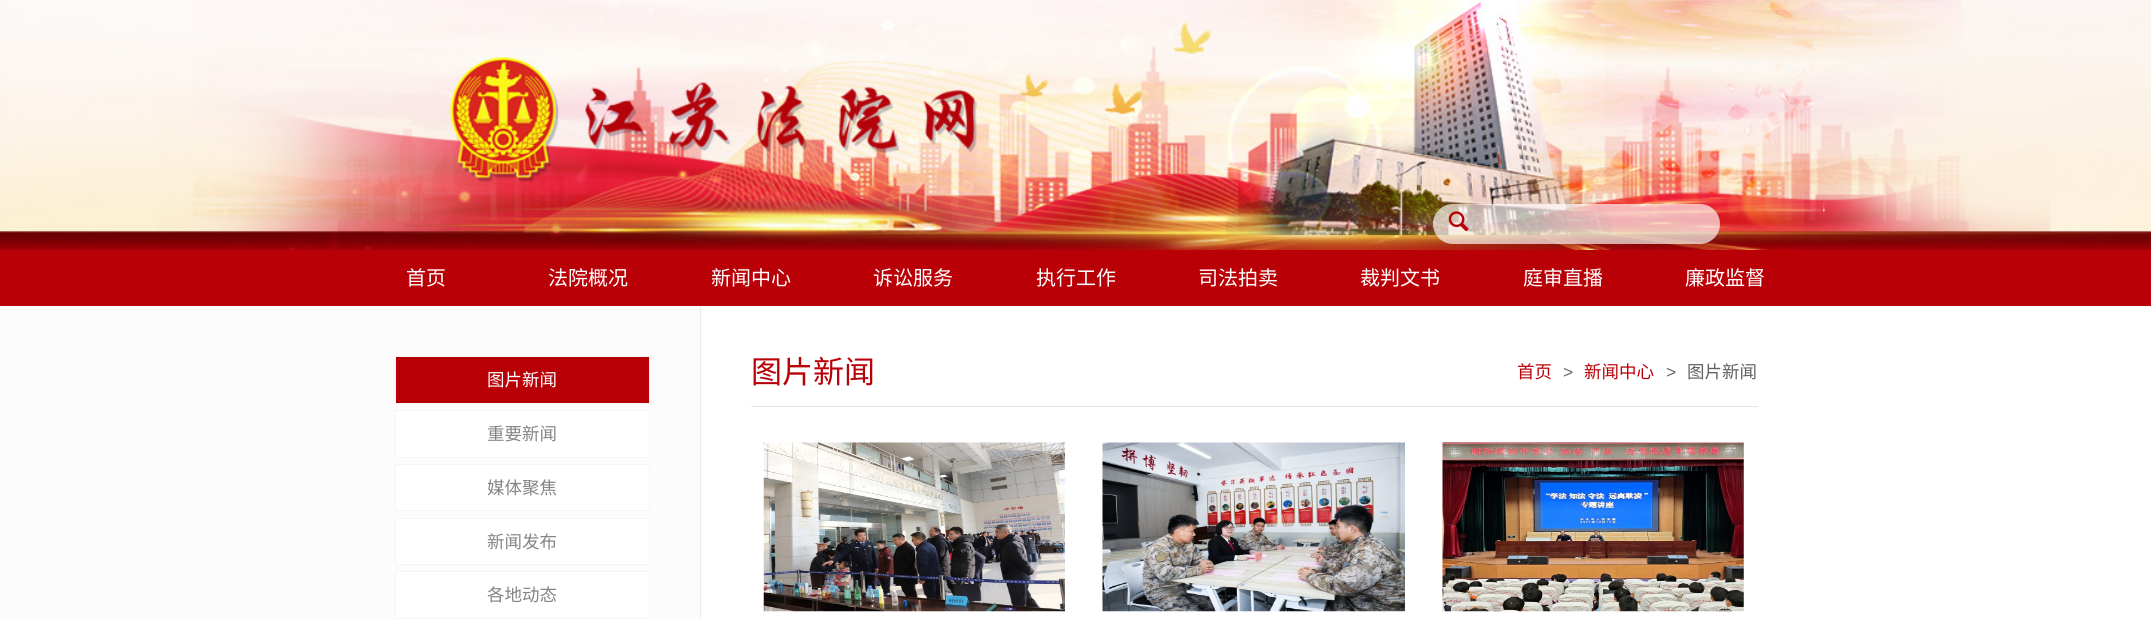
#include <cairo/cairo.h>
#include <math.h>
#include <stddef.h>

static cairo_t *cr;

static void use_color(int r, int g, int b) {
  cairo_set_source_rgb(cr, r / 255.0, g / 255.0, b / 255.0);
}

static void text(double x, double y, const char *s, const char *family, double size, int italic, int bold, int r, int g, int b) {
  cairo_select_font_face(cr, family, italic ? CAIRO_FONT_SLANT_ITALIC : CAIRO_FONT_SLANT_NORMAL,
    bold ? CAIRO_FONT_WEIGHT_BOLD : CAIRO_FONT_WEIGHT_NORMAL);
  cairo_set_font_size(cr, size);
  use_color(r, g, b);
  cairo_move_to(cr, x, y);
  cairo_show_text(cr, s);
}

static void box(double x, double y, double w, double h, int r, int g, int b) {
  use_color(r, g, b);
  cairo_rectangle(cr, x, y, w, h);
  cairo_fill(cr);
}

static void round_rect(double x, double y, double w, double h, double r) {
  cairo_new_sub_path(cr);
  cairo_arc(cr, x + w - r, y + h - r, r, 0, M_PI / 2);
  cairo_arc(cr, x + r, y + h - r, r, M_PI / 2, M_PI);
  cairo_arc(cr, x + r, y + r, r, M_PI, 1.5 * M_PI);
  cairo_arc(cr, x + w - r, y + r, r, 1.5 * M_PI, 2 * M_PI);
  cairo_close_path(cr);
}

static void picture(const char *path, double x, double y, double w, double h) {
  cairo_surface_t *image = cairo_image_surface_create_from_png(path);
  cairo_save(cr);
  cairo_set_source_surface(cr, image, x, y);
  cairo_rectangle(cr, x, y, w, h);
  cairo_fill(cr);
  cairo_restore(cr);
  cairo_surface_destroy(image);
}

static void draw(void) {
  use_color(255, 255, 255);
  cairo_paint(cr);
  box(0, 250, 2151, 56, 186, 0, 7);
  picture("img_01.png", 0, 0, 6, 250);
  picture("img_02.png", 6, 0, 2145, 250);
  cairo_set_source_rgba(cr, 1, 1, 1, 0.66);
  round_rect(1433, 204, 287, 40, 20);
  cairo_fill(cr);
  picture("img_03.png", 1448, 211, 21, 21);
  box(700, 306, 1, 313, 235, 235, 235);
  box(0, 306, 700, 313, 252, 252, 252);
  use_color(186, 0, 7);
  cairo_rectangle(cr, 395.5, 356.5, 254, 47);
  cairo_fill_preserve(cr);
  use_color(245, 245, 245);
  cairo_set_line_width(cr, 1);
  cairo_stroke(cr);
  use_color(255, 255, 255);
  cairo_rectangle(cr, 395.5, 410.5, 254, 47);
  cairo_fill_preserve(cr);
  use_color(245, 245, 245);
  cairo_stroke(cr);
  use_color(255, 255, 255);
  cairo_rectangle(cr, 395.5, 464.5, 254, 46);
  cairo_fill_preserve(cr);
  use_color(245, 245, 245);
  cairo_stroke(cr);
  use_color(255, 255, 255);
  cairo_rectangle(cr, 395.5, 518.5, 254, 46);
  cairo_fill_preserve(cr);
  use_color(245, 245, 245);
  cairo_stroke(cr);
  use_color(255, 255, 255);
  cairo_rectangle(cr, 395.5, 571.5, 254, 47);
  cairo_fill_preserve(cr);
  use_color(245, 245, 245);
  cairo_stroke(cr);
  box(751, 406, 1007, 1, 229, 229, 229);
  picture("img_04.png", 763, 442, 302, 170);
  picture("img_05.png", 1102, 442, 303, 170);
  picture("img_06.png", 1442, 442, 302, 170);
  text(406, 285, "首页", "Noto Sans CJK SC", 20, 0, 0, 255, 255, 255);
  text(548, 285, "法院概况", "Noto Sans CJK SC", 20, 0, 0, 255, 255, 255);
  text(711, 285, "新闻中心", "Noto Sans CJK SC", 20, 0, 0, 255, 255, 255);
  text(873, 285, "诉讼服务", "Noto Sans CJK SC", 20, 0, 0, 255, 255, 255);
  text(1036, 285, "执行工作", "Noto Sans CJK SC", 20, 0, 0, 255, 255, 255);
  text(1198, 285, "司法拍卖", "Noto Sans CJK SC", 20, 0, 0, 255, 255, 255);
  text(1360, 285, "裁判文书", "Noto Sans CJK SC", 20, 0, 0, 255, 255, 255);
  text(1523, 285, "庭审直播", "Noto Sans CJK SC", 20, 0, 0, 255, 255, 255);
  text(1685, 285, "廉政监督", "Noto Sans CJK SC", 20, 0, 0, 255, 255, 255);
  text(487, 386, "图片新闻", "Noto Sans CJK SC", 17.5, 0, 0, 255, 255, 255);
  text(487, 440, "重要新闻", "Noto Sans CJK SC", 17.5, 0, 0, 133, 133, 133);
  text(487, 494, "媒体聚焦", "Noto Sans CJK SC", 17.5, 0, 0, 133, 133, 133);
  text(487, 548, "新闻发布", "Noto Sans CJK SC", 17.5, 0, 0, 133, 133, 133);
  text(487, 601, "各地动态", "Noto Sans CJK SC", 17.5, 0, 0, 133, 133, 133);
  text(751, 383, "图片新闻", "Noto Sans CJK SC", 31, 0, 0, 186, 0, 7);
  text(1517, 378, "首页", "Noto Sans CJK SC", 17.5, 0, 0, 186, 0, 7);
  text(1563, 378, ">", "Liberation Sans", 17.5, 0, 0, 106, 106, 106);
  text(1584, 378, "新闻中心", "Noto Sans CJK SC", 17.5, 0, 0, 186, 0, 7);
  text(1666, 378, ">", "Liberation Sans", 17.5, 0, 0, 106, 106, 106);
  text(1687, 378, "图片新闻", "Noto Sans CJK SC", 17.5, 0, 0, 98, 98, 98);
}

int main(void) {
  cairo_surface_t *surface = cairo_image_surface_create(CAIRO_FORMAT_RGB24, 2151, 619);
  cr = cairo_create(surface);
  cairo_font_options_t *options = cairo_font_options_create();
  cairo_font_options_set_hint_metrics(options, CAIRO_HINT_METRICS_OFF);
  cairo_font_options_set_hint_style(options, CAIRO_HINT_STYLE_NONE);
  cairo_set_font_options(cr, options);
  cairo_set_miter_limit(cr, 4);
  draw();
  cairo_surface_write_to_png(surface, "out.png");
  cairo_font_options_destroy(options);
  cairo_destroy(cr);
  cairo_surface_destroy(surface);
  return 0;
}
